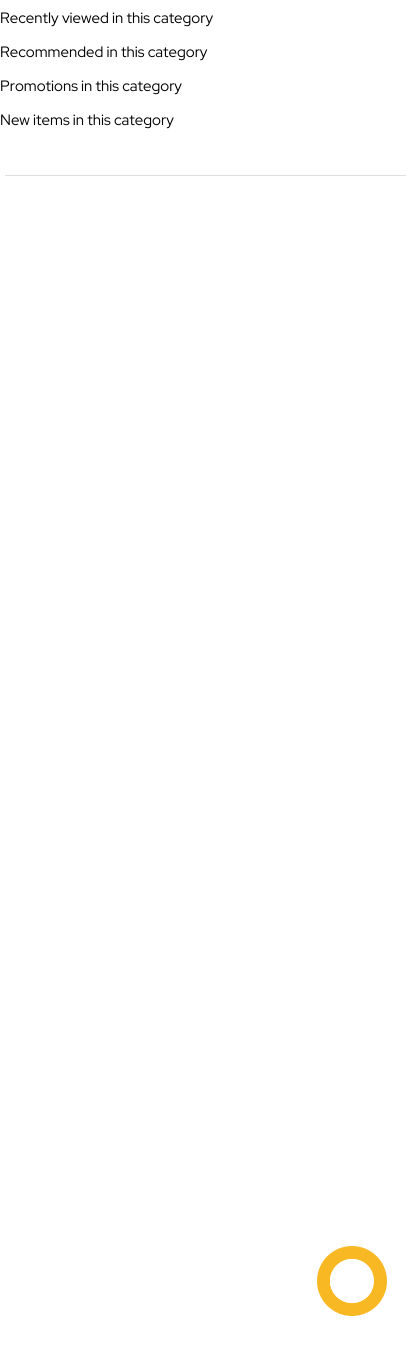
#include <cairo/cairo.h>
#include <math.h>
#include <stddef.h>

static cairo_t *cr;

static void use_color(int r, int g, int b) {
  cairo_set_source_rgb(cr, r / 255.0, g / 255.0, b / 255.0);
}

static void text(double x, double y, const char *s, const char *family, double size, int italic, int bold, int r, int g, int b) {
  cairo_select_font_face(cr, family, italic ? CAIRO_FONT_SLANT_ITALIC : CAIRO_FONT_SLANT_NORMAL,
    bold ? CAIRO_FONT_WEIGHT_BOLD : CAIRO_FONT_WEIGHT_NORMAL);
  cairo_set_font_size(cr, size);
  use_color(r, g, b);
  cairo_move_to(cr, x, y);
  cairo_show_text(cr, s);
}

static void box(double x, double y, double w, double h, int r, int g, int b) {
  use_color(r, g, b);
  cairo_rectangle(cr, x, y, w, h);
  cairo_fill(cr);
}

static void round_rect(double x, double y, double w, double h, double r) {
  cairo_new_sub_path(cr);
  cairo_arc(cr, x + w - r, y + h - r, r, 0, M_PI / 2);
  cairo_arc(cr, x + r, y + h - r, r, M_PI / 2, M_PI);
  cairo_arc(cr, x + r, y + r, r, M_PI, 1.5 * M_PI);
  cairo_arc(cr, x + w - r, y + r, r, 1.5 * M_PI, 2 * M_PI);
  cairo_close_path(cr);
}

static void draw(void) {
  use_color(255, 255, 255);
  cairo_paint(cr);
  box(5, 175, 401, 1, 224, 224, 224);
  use_color(248, 184, 36);
  cairo_arc(cr, 352, 1281, 35, 0, 2 * M_PI);
  cairo_fill(cr);
  use_color(255, 255, 255);
  cairo_arc(cr, 352, 1281, 22, 0, 2 * M_PI);
  cairo_fill(cr);
  cairo_save(cr);
  round_rect(330, 1259, 44, 44, 22);
  cairo_clip(cr);
  cairo_new_path(cr);
  cairo_move_to(cr, 352, 1259);
  cairo_line_to(cr, 372, 1259);
  cairo_line_to(cr, 372, 1303);
  cairo_line_to(cr, 352, 1303);
  cairo_curve_to(cr, 340, 1303, 330, 1293, 330, 1281);
  cairo_curve_to(cr, 330, 1269, 340, 1259, 352, 1259);
  cairo_close_path(cr);
  cairo_fill(cr);
  cairo_restore(cr);
  text(0, 23, "Recently viewed in this category", "Red Hat Display", 15, 0, 0, 0, 0, 0);
  text(0, 57, "Recommended in this category", "Red Hat Display", 15, 0, 0, 0, 0, 0);
  text(0, 91, "Promotions in this category", "Red Hat Display", 15, 0, 0, 0, 0, 0);
  text(0, 125, "New items in this category", "Red Hat Display", 15, 0, 0, 0, 0, 0);
}

int main(void) {
  cairo_surface_t *surface = cairo_image_surface_create(CAIRO_FORMAT_RGB24, 411, 1361);
  cr = cairo_create(surface);
  cairo_font_options_t *options = cairo_font_options_create();
  cairo_font_options_set_hint_metrics(options, CAIRO_HINT_METRICS_OFF);
  cairo_font_options_set_hint_style(options, CAIRO_HINT_STYLE_NONE);
  cairo_set_font_options(cr, options);
  cairo_set_miter_limit(cr, 4);
  draw();
  cairo_surface_write_to_png(surface, "out.png");
  cairo_font_options_destroy(options);
  cairo_destroy(cr);
  cairo_surface_destroy(surface);
  return 0;
}
